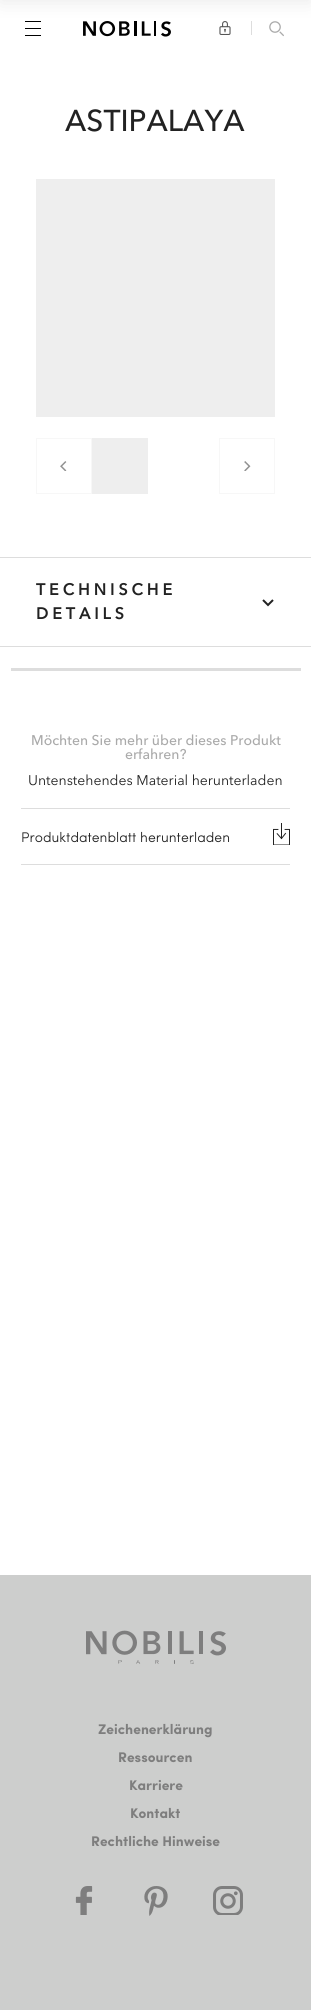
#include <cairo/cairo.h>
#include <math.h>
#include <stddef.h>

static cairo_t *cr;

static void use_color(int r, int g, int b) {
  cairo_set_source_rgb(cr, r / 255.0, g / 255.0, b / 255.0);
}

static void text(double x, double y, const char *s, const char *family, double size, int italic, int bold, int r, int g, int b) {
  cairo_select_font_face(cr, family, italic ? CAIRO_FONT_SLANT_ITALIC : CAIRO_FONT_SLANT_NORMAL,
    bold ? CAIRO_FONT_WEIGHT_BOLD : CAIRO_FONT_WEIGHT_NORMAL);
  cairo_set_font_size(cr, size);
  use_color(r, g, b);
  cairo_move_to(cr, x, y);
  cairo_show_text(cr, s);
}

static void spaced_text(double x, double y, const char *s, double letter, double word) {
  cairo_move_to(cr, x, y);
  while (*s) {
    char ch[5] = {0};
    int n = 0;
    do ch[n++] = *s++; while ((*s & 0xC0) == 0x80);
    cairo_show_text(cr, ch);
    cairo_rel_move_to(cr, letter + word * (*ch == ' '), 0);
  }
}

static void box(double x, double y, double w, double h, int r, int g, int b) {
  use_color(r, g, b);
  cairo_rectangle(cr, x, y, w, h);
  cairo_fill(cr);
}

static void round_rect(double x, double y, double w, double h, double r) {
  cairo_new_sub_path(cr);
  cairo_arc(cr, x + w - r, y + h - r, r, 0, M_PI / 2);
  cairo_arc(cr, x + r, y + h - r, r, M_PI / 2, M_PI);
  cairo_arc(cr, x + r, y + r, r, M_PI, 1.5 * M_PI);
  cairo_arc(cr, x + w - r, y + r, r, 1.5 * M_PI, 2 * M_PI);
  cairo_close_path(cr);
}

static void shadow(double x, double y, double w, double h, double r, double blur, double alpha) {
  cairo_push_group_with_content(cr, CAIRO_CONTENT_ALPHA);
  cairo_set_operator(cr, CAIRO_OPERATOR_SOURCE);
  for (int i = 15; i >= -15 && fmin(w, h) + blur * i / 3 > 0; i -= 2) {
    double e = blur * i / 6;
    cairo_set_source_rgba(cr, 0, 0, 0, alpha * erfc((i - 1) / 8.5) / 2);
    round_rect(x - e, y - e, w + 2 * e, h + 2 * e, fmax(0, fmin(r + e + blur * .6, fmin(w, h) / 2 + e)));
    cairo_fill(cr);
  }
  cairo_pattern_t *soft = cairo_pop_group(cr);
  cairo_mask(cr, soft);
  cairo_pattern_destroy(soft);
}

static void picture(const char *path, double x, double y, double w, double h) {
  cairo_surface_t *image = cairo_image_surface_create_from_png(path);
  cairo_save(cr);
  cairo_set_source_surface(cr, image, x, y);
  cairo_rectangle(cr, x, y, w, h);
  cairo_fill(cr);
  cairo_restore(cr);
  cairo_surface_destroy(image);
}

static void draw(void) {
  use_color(255, 255, 255);
  cairo_paint(cr);
  box(25, 21, 16, 1, 0, 0, 0);
  box(25, 28, 16, 1, 0, 0, 0);
  picture("img_01.png", 83, 21, 88, 16);
  picture("img_02.png", 219, 21, 12, 14);
  box(251, 21, 1, 14, 221, 221, 221);
  picture("img_03.png", 269, 21, 15, 16);
  use_color(0, 0, 0);
  shadow(0, -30, 311, 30, 0, 10, 0.1);
  box(25, 35, 16, 1, 0, 0, 0);
  box(36, 179, 239, 238, 238, 238, 238);
  cairo_rectangle(cr, 36.5, 438.5, 55, 55);
  use_color(247, 247, 247);
  cairo_set_line_width(cr, 1);
  cairo_stroke(cr);
  picture("img_04.png", 60, 461, 7, 10);
  box(92, 438, 56, 56, 238, 238, 238);
  cairo_rectangle(cr, 219.5, 438.5, 55, 55);
  use_color(247, 247, 247);
  cairo_stroke(cr);
  picture("img_05.png", 244, 461, 7, 10);
  cairo_rectangle(cr, -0.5, 557.5, 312, 89);
  use_color(221, 221, 221);
  cairo_stroke(cr);
  cairo_new_path(cr);
  cairo_move_to(cr, 273, 600);
  cairo_line_to(cr, 268, 605);
  cairo_line_to(cr, 263, 600);
  use_color(34, 34, 34);
  cairo_set_line_width(cr, 2);
  cairo_stroke(cr);
  box(11, 668, 290, 3, 221, 221, 221);
  box(21, 808, 269, 1, 221, 221, 221);
  box(21, 864, 269, 1, 221, 221, 221);
  picture("img_06.png", 273, 823, 17, 22);
  box(0, 1575, 311, 435, 205, 206, 205);
  picture("img_07.png", 86, 1630, 140, 34);
  picture("img_08.png", 75, 1886, 18, 29);
  picture("img_09.png", 144, 1886, 24, 30);
  picture("img_10.png", 213, 1886, 30, 29);
  text(65, 131, "ASTIPALAYA", "Avenir Next Medium", 30, 0, 0, 34, 34, 34);
  cairo_select_font_face(cr, "Avenir Next", CAIRO_FONT_SLANT_NORMAL, CAIRO_FONT_WEIGHT_BOLD);
  cairo_set_font_size(cr, 16);
  spaced_text(36, 595, "TECHNISCHE", 4, 0);
  spaced_text(36, 619, "DETAILS", 4, 0);
  text(31, 745, "Möchten Sie mehr über dieses Produkt", "Avenir Next Medium", 14, 0, 0, 170, 170, 170);
  text(125, 759, "erfahren?", "Avenir Next Medium", 14, 0, 0, 170, 170, 170);
  text(28, 785, "Untenstehendes Material herunterladen", "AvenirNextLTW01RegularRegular", 14, 0, 0, 34, 34, 34);
  text(21, 842, "Produktdatenblatt herunterladen", "Sofia Light", 14, 0, 0, 34, 34, 34);
  text(98, 1734, "Zeichenerklärung", "Sofia", 14, 0, 1, 126, 126, 126);
  text(118, 1762, "Ressourcen", "Sofia", 14, 0, 1, 126, 126, 126);
  text(129, 1790, "Karriere", "Sofia", 14, 0, 1, 126, 126, 126);
  text(130, 1818, "Kontakt", "Sofia", 14, 0, 1, 126, 126, 126);
  text(91, 1846, "Rechtliche Hinweise", "Sofia", 14, 0, 1, 126, 126, 126);
}

int main(void) {
  cairo_surface_t *surface = cairo_image_surface_create(CAIRO_FORMAT_RGB24, 311, 2010);
  cr = cairo_create(surface);
  cairo_font_options_t *options = cairo_font_options_create();
  cairo_font_options_set_hint_metrics(options, CAIRO_HINT_METRICS_OFF);
  cairo_font_options_set_hint_style(options, CAIRO_HINT_STYLE_NONE);
  cairo_set_font_options(cr, options);
  cairo_set_miter_limit(cr, 4);
  draw();
  cairo_surface_write_to_png(surface, "out.png");
  cairo_font_options_destroy(options);
  cairo_destroy(cr);
  cairo_surface_destroy(surface);
  return 0;
}
